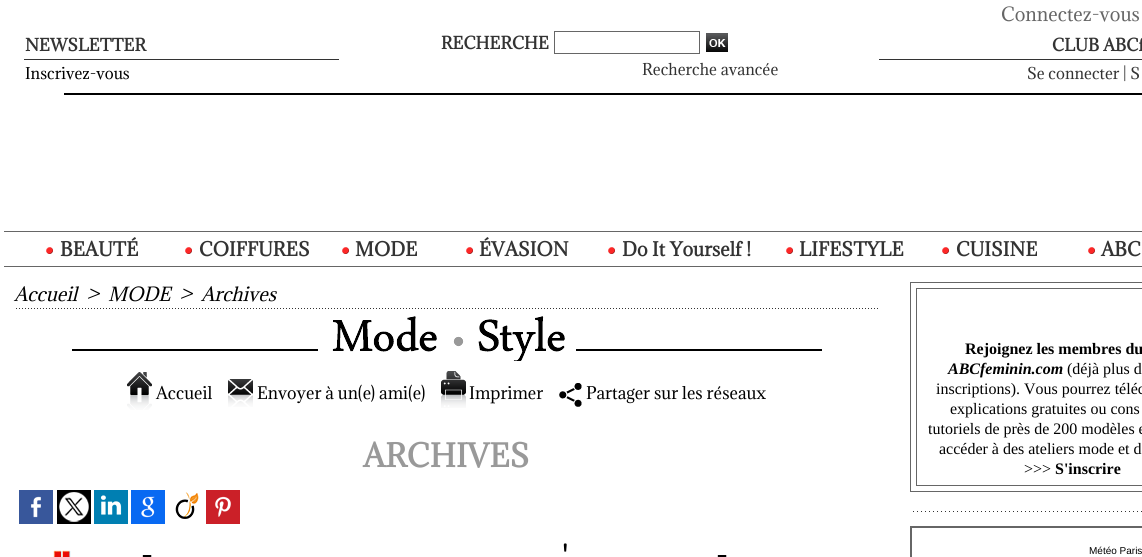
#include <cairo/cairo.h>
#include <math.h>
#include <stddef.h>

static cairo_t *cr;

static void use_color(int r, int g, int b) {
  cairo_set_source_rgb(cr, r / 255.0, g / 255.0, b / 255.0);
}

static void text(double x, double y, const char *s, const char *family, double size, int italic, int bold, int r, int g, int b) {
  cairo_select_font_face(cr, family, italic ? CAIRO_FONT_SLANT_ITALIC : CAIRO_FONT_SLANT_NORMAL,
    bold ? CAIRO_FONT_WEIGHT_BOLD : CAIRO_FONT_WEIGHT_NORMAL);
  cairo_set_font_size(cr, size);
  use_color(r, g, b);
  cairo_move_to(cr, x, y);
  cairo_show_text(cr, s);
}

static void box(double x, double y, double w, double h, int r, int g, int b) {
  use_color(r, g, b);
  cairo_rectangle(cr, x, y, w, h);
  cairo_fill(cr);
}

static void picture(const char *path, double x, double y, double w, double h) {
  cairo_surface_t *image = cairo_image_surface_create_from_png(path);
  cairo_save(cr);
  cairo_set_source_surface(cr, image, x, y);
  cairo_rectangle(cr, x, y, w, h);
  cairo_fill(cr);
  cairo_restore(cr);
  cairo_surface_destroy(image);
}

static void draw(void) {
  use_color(255, 255, 255);
  cairo_paint(cr);
  box(64, 93, 1078, 2, 0, 0, 0);
  box(24, 59, 315, 1, 51, 51, 51);
  cairo_rectangle(cr, 554.5, 31.5, 145, 22);
  use_color(102, 102, 102);
  cairo_set_line_width(cr, 1);
  cairo_stroke(cr);
  picture("img_01.png", 706, 33, 22, 19);
  box(879, 59, 263, 1, 51, 51, 51);
  box(4, 231, 1138, 1, 102, 102, 102);
  box(4, 266, 1138, 1, 102, 102, 102);
  picture("img_02.png", 46, 247, 7, 7);
  picture("img_02.png", 185, 247, 7, 7);
  picture("img_02.png", 342, 247, 7, 7);
  picture("img_02.png", 466, 247, 7, 7);
  picture("img_02.png", 608, 247, 7, 7);
  picture("img_02.png", 786, 247, 7, 7);
  picture("img_02.png", 942, 247, 7, 7);
  picture("img_02.png", 1088, 247, 7, 7);
  picture("img_03.png", 16, 308, 862, 1);
  picture("img_04.png", 72, 316, 750, 45);
  picture("img_05.png", 127, 372, 25, 38);
  picture("img_06.png", 228, 379, 25, 28);
  picture("img_07.png", 441, 371, 25, 37);
  picture("img_08.png", 559, 383, 23, 24);
  picture("img_09.png", 19, 490, 34, 34);
  picture("img_10.png", 57, 490, 34, 34);
  picture("img_11.png", 94, 490, 34, 34);
  picture("img_12.png", 131, 490, 34, 34);
  picture("img_13.png", 175, 492, 24, 27);
  picture("img_14.png", 206, 490, 34, 34);
  picture("img_15.png", 53, 550, 18, 7);
  cairo_rectangle(cr, 910.5, 282.5, 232, 209);
  cairo_stroke(cr);
  cairo_rectangle(cr, 916.5, 288.5, 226, 197);
  cairo_stroke(cr);
  picture("img_16.png", 913, 511, 229, 1);
  cairo_rectangle(cr, 910.5, 526.5, 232, 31);
  cairo_stroke(cr);
  cairo_rectangle(cr, 911.5, 527.5, 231, 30);
  cairo_stroke(cr);
  text(1001, 21, "Connectez-vous", "Adamina", 18, 0, 0, 102, 102, 102);
  text(25, 51, "NEWSLETTER", "Adamina", 16, 0, 1, 51, 51, 51);
  text(25, 79, "Inscrivez-vous", "Adamina", 15, 0, 0, 0, 0, 0);
  text(441, 49, "RECHERCHE", "Adamina", 16, 0, 1, 51, 51, 51);
  text(642, 75, "Recherche avancée", "Adamina", 15, 0, 0, 51, 51, 51);
  text(1052, 51, "CLUB ABCf", "Adamina", 16, 0, 1, 51, 51, 51);
  text(1027, 79, "Se connecter | S", "Adamina", 15, 0, 0, 51, 51, 51);
  text(60, 256, "BEAUTÉ", "Adamina", 18, 0, 1, 51, 51, 51);
  text(199, 256, "COIFFURES", "Adamina", 18, 0, 1, 51, 51, 51);
  text(355, 256, "MODE", "Adamina", 18, 0, 1, 51, 51, 51);
  text(479, 256, "ÉVASION", "Adamina", 18, 0, 1, 51, 51, 51);
  text(622, 256, "Do It Yourself !", "Adamina", 18, 0, 1, 51, 51, 51);
  text(799, 256, "LIFESTYLE", "Adamina", 18, 0, 1, 51, 51, 51);
  text(956, 256, "CUISINE", "Adamina", 18, 0, 1, 51, 51, 51);
  text(1101, 256, "ABC", "Adamina", 18, 0, 1, 51, 51, 51);
  text(14, 301, "Accueil", "Adamina", 18, 1, 0, 0, 0, 0);
  text(86, 301, ">", "Adamina", 18, 1, 0, 0, 0, 0);
  text(108, 301, "MODE", "Adamina", 18, 1, 0, 0, 0, 0);
  text(179, 301, ">", "Adamina", 18, 1, 0, 0, 0, 0);
  text(201, 301, "Archives", "Adamina", 18, 1, 0, 0, 0, 0);
  text(156, 399, "Accueil", "Adamina", 16, 0, 0, 0, 0, 0);
  text(257, 399, "Envoyer à un(e) ami(e)", "Adamina", 16, 0, 0, 0, 0, 0);
  text(469, 399, "Imprimer", "Adamina", 16, 0, 0, 0, 0, 0);
  text(586, 399, "Partager sur les réseaux", "Adamina", 16, 0, 0, 0, 0, 0);
  text(363, 467, "ARCHIVES", "Adamina", 30, 0, 1, 153, 153, 153);
  text(562, 566, "'", "Adamina", 26, 0, 1, 0, 0, 0);
  text(141, 566, "-", "Adamina", 26, 0, 1, 0, 0, 0);
  text(716, 566, "-", "Adamina", 26, 0, 1, 0, 0, 0);
  text(965, 354, "Rejoignez les membres du", "Liberation Serif", 16, 0, 1, 0, 0, 0);
  text(948, 374, "ABCfeminin.com", "Liberation Serif", 16, 1, 1, 0, 0, 0);
  text(1067, 374, "(déjà plus d", "Liberation Serif", 16, 0, 0, 0, 0, 0);
  text(936, 394, "inscriptions). Vous pourrez téléc", "Liberation Serif", 16, 0, 0, 0, 0, 0);
  text(950, 414, "explications gratuites ou cons", "Liberation Serif", 16, 0, 0, 0, 0, 0);
  text(928, 434, "tutoriels de près de 200 modèles e", "Liberation Serif", 16, 0, 0, 0, 0, 0);
  text(939, 454, "accéder à des ateliers mode et d", "Liberation Serif", 16, 0, 0, 0, 0, 0);
  text(1024, 474, ">>>", "Liberation Serif", 16, 0, 0, 0, 0, 0);
  text(1055, 474, "S'inscrire", "Liberation Serif", 16, 0, 1, 0, 0, 0);
  text(1089, 554, "Météo Paris", "Liberation Sans", 10, 0, 0, 0, 0, 0);
}

int main(void) {
  cairo_surface_t *surface = cairo_image_surface_create(CAIRO_FORMAT_RGB24, 1142, 557);
  cr = cairo_create(surface);
  cairo_font_options_t *options = cairo_font_options_create();
  cairo_font_options_set_hint_metrics(options, CAIRO_HINT_METRICS_OFF);
  cairo_font_options_set_hint_style(options, CAIRO_HINT_STYLE_NONE);
  cairo_set_font_options(cr, options);
  cairo_set_miter_limit(cr, 4);
  draw();
  cairo_surface_write_to_png(surface, "out.png");
  cairo_font_options_destroy(options);
  cairo_destroy(cr);
  cairo_surface_destroy(surface);
  return 0;
}
